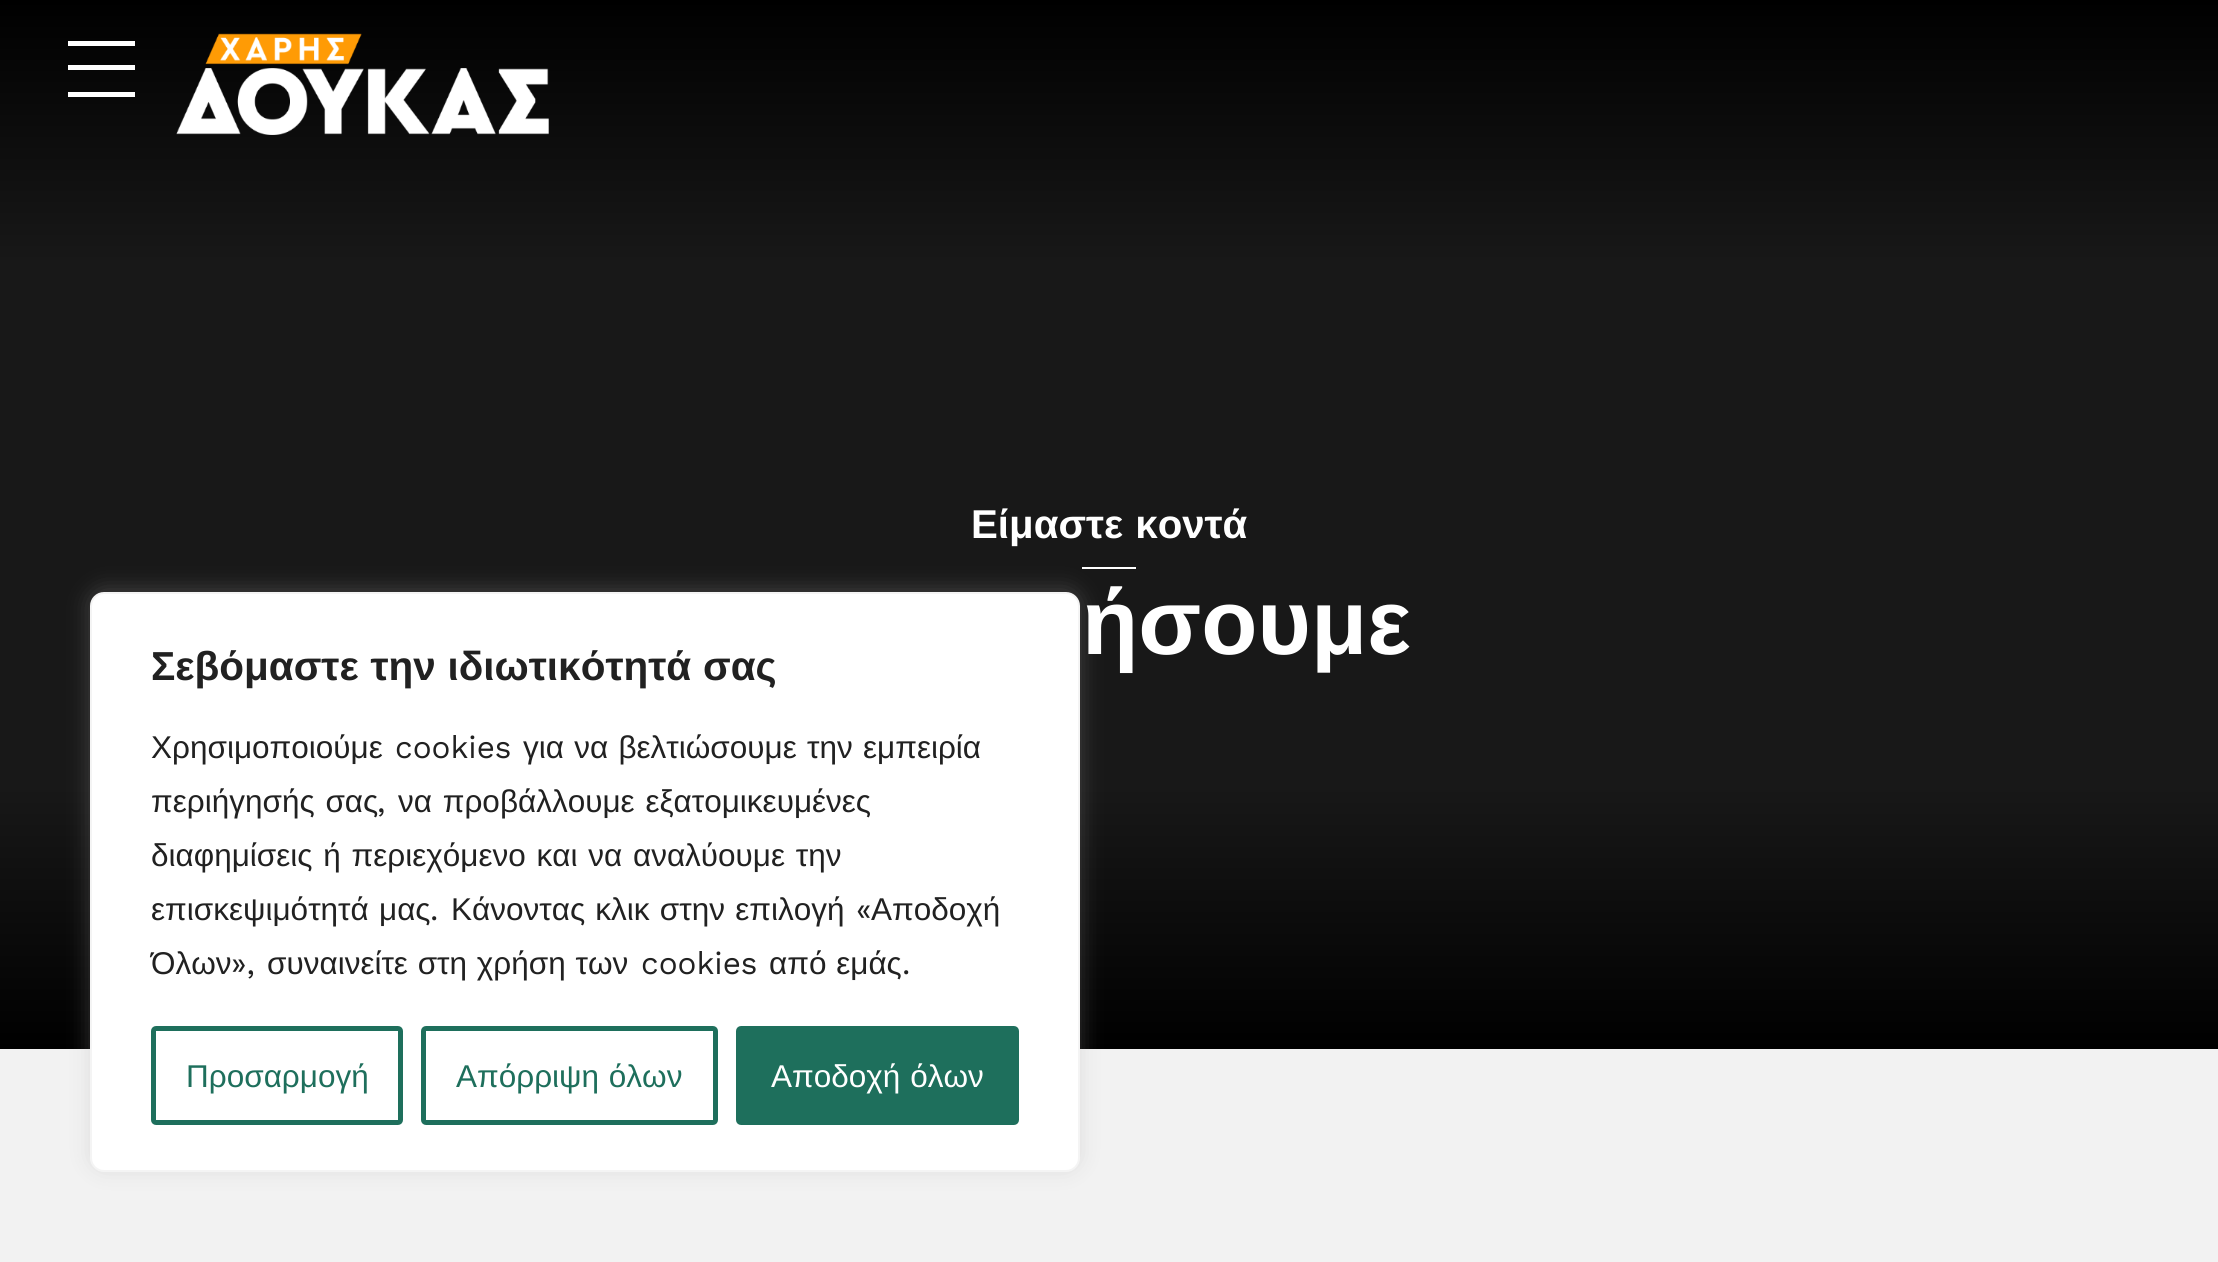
#include <cairo/cairo.h>
#include <math.h>
#include <stddef.h>

static cairo_t *cr;

static void use_color(int r, int g, int b) {
  cairo_set_source_rgb(cr, r / 255.0, g / 255.0, b / 255.0);
}

static void text(double x, double y, const char *s, const char *family, double size, int italic, int bold, int r, int g, int b) {
  cairo_select_font_face(cr, family, italic ? CAIRO_FONT_SLANT_ITALIC : CAIRO_FONT_SLANT_NORMAL,
    bold ? CAIRO_FONT_WEIGHT_BOLD : CAIRO_FONT_WEIGHT_NORMAL);
  cairo_set_font_size(cr, size);
  use_color(r, g, b);
  cairo_move_to(cr, x, y);
  cairo_show_text(cr, s);
}

static void spaced_text(double x, double y, const char *s, double letter, double word) {
  cairo_move_to(cr, x, y);
  while (*s) {
    char ch[5] = {0};
    int n = 0;
    do ch[n++] = *s++; while ((*s & 0xC0) == 0x80);
    cairo_show_text(cr, ch);
    cairo_rel_move_to(cr, letter + word * (*ch == ' '), 0);
  }
}

static void box(double x, double y, double w, double h, int r, int g, int b) {
  use_color(r, g, b);
  cairo_rectangle(cr, x, y, w, h);
  cairo_fill(cr);
}

static void round_rect(double x, double y, double w, double h, double r) {
  cairo_new_sub_path(cr);
  cairo_arc(cr, x + w - r, y + h - r, r, 0, M_PI / 2);
  cairo_arc(cr, x + r, y + h - r, r, M_PI / 2, M_PI);
  cairo_arc(cr, x + r, y + r, r, M_PI, 1.5 * M_PI);
  cairo_arc(cr, x + w - r, y + r, r, 1.5 * M_PI, 2 * M_PI);
  cairo_close_path(cr);
}

static void shadow(double x, double y, double w, double h, double r, double blur, double alpha) {
  cairo_push_group_with_content(cr, CAIRO_CONTENT_ALPHA);
  cairo_set_operator(cr, CAIRO_OPERATOR_SOURCE);
  for (int i = 15; i >= -15 && fmin(w, h) + blur * i / 3 > 0; i -= 2) {
    double e = blur * i / 6;
    cairo_set_source_rgba(cr, 0, 0, 0, alpha * erfc((i - 1) / 8.5) / 2);
    round_rect(x - e, y - e, w + 2 * e, h + 2 * e, fmax(0, fmin(r + e + blur * .6, fmin(w, h) / 2 + e)));
    cairo_fill(cr);
  }
  cairo_pattern_t *soft = cairo_pop_group(cr);
  cairo_mask(cr, soft);
  cairo_pattern_destroy(soft);
}

static void picture(const char *path, double x, double y, double w, double h) {
  cairo_surface_t *image = cairo_image_surface_create_from_png(path);
  cairo_save(cr);
  cairo_set_source_surface(cr, image, x, y);
  cairo_rectangle(cr, x, y, w, h);
  cairo_fill(cr);
  cairo_restore(cr);
  cairo_surface_destroy(image);
}

static void draw(void) {
  cairo_pattern_t *gradient;
  use_color(242, 242, 242);
  cairo_paint(cr);
  gradient = cairo_pattern_create_linear(1109, 0, 1109, 1049);
  cairo_pattern_add_color_stop_rgba(gradient, 0, 0, 0, 0, 1);
  cairo_pattern_add_color_stop_rgba(gradient, 0.25, 0.094, 0.094, 0.094, 1);
  cairo_pattern_add_color_stop_rgba(gradient, 0.75, 0.094, 0.094, 0.094, 1);
  cairo_pattern_add_color_stop_rgba(gradient, 1, 0, 0, 0, 1);
  cairo_set_source(cr, gradient);
  cairo_pattern_destroy(gradient);
  cairo_rectangle(cr, 0, 0, 2218, 1049);
  cairo_fill(cr);
  box(68, 41, 67, 5, 255, 255, 255);
  box(68, 65, 67, 5, 255, 255, 255);
  box(68, 92, 67, 5, 255, 255, 255);
  picture("img_01.png", 176, 33, 373, 102);
  box(1082, 567, 54, 2, 255, 255, 255);
  use_color(172, 171, 171);
  shadow(90, 590, 990, 580, 14, 11, 0.3);
  use_color(255, 255, 255);
  round_rect(91, 593, 988, 578, 13);
  cairo_fill_preserve(cr);
  use_color(244, 244, 244);
  cairo_stroke(cr);
  round_rect(153.5, 1028.5, 247, 94, 2.5);
  use_color(30, 111, 92);
  cairo_set_line_width(cr, 5);
  cairo_stroke(cr);
  round_rect(423.5, 1028.5, 292, 94, 2.5);
  cairo_stroke(cr);
  round_rect(738.5, 1028.5, 278, 94, 2.5);
  cairo_fill_preserve(cr);
  cairo_stroke(cr);
  cairo_select_font_face(cr, "Liberation Sans", CAIRO_FONT_SLANT_NORMAL, CAIRO_FONT_WEIGHT_BOLD);
  cairo_set_font_size(cr, 40.25);
  use_color(255, 255, 255);
  spaced_text(971, 538, "Είμαστε κοντά", 0, 1);
  cairo_set_font_size(cr, 92);
  spaced_text(1082, 654, "ήσουμε", 0, 1);
  cairo_set_font_size(cr, 40.5);
  use_color(33, 33, 33);
  spaced_text(151, 680, "Σεβόμαστε την ιδιωτικότητά σας", 0, 0.5);
  text(151, 758, "Χρησιμοποιούμε", "Liberation Sans", 31.5, 0, 0, 33, 33, 33);
  text(395, 758, "cookies", "Work Sans", 31.5, 0, 0, 33, 33, 33);
  cairo_select_font_face(cr, "Liberation Sans", CAIRO_FONT_SLANT_NORMAL, CAIRO_FONT_WEIGHT_NORMAL);
  spaced_text(523, 758, "για να βελτιώσουμε την εμπειρία", 0, 1.5);
  spaced_text(151, 812, "περιήγησής σας", 0, 2);
  text(377, 812, ",", "Work Sans", 31.5, 0, 0, 33, 33, 33);
  cairo_select_font_face(cr, "Liberation Sans", CAIRO_FONT_SLANT_NORMAL, CAIRO_FONT_WEIGHT_NORMAL);
  spaced_text(398, 812, "να προβάλλουμε εξατομικευμένες", 0, 2);
  spaced_text(151, 866, "διαφημίσεις ή περιεχόμενο και να αναλύουμε την", 0, 2);
  spaced_text(151, 920, "επισκεψιμότητά μας", 0, 1.5);
  spaced_text(451, 920, "Κάνοντας κλικ στην επιλογή", 0, 1.5);
  text(856, 920, "«", "Work Sans", 31.5, 0, 0, 33, 33, 33);
  text(871, 920, "Αποδοχή", "Liberation Sans", 31.5, 0, 0, 33, 33, 33);
  text(430, 920, ".", "Work Sans", 31.5, 0, 0, 33, 33, 33);
  text(151, 974, "Όλων", "Liberation Sans", 31.5, 0, 0, 33, 33, 33);
  text(231, 974, "»,", "Work Sans", 31.5, 0, 0, 33, 33, 33);
  cairo_select_font_face(cr, "Liberation Sans", CAIRO_FONT_SLANT_NORMAL, CAIRO_FONT_WEIGHT_NORMAL);
  spaced_text(267, 974, "συναινείτε στη χρήση των", 0, 1);
  text(641, 974, "cookies", "Work Sans", 31.5, 0, 0, 33, 33, 33);
  cairo_select_font_face(cr, "Liberation Sans", CAIRO_FONT_SLANT_NORMAL, CAIRO_FONT_WEIGHT_NORMAL);
  spaced_text(769, 974, "από εμάς", 0, 1);
  text(902, 974, ".", "Work Sans", 31.5, 0, 0, 33, 33, 33);
  text(186, 1087, "Προσαρμογή", "Liberation Sans", 31.5, 0, 0, 30, 111, 92);
  spaced_text(456, 1087, "Απόρριψη όλων", 0, 1);
  use_color(255, 255, 255);
  spaced_text(771, 1087, "Αποδοχή όλων", 0, 1);
}

int main(void) {
  cairo_surface_t *surface = cairo_image_surface_create(CAIRO_FORMAT_RGB24, 2218, 1262);
  cr = cairo_create(surface);
  cairo_font_options_t *options = cairo_font_options_create();
  cairo_font_options_set_hint_metrics(options, CAIRO_HINT_METRICS_OFF);
  cairo_font_options_set_hint_style(options, CAIRO_HINT_STYLE_NONE);
  cairo_set_font_options(cr, options);
  cairo_set_miter_limit(cr, 4);
  draw();
  cairo_surface_write_to_png(surface, "out.png");
  cairo_font_options_destroy(options);
  cairo_destroy(cr);
  cairo_surface_destroy(surface);
  return 0;
}
